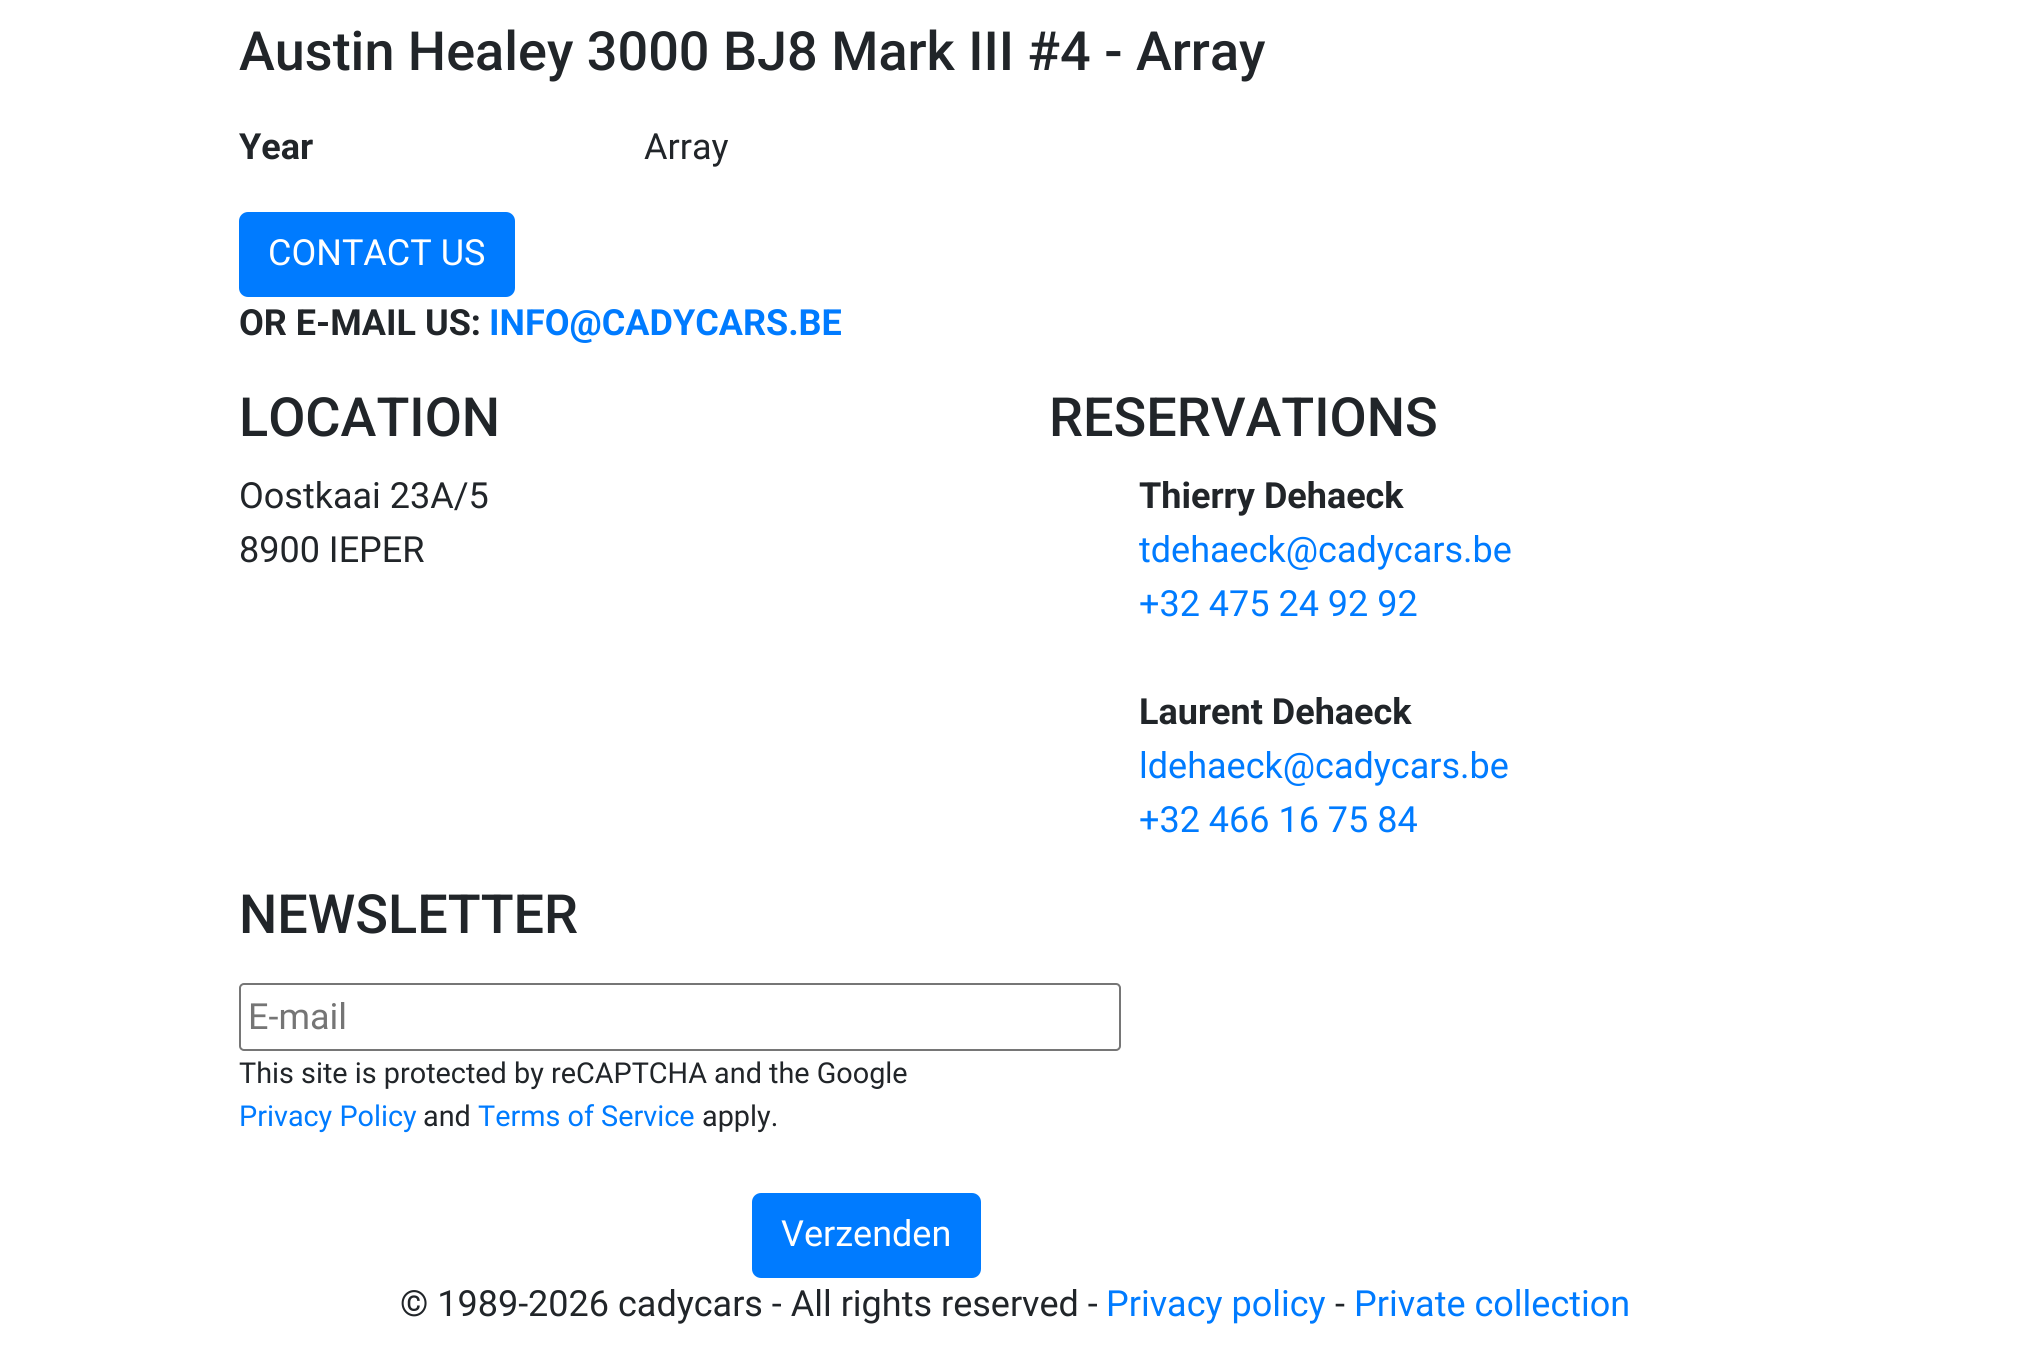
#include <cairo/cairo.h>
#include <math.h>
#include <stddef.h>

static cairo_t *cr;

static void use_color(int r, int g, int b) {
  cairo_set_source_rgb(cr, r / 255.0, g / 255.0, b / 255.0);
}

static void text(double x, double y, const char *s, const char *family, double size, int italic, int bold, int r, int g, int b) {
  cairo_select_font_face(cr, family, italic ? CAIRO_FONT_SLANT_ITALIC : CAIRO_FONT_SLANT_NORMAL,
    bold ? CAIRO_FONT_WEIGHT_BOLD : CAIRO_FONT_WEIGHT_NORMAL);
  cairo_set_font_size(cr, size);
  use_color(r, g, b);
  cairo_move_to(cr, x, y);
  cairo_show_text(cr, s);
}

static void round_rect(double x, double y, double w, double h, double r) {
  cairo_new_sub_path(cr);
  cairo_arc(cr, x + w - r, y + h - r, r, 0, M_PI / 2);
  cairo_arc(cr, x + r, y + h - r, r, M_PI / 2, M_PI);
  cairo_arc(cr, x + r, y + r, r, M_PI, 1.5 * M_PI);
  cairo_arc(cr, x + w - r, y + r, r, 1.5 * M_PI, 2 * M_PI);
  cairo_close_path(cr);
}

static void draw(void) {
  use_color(255, 255, 255);
  cairo_paint(cr);
  use_color(0, 123, 255);
  round_rect(240, 213, 274, 83, 8);
  cairo_fill_preserve(cr);
  cairo_stroke(cr);
  round_rect(240, 984, 880, 66, 4);
  use_color(118, 118, 118);
  cairo_stroke(cr);
  use_color(0, 123, 255);
  round_rect(753, 1194, 227, 83, 8);
  cairo_fill_preserve(cr);
  cairo_stroke(cr);
  text(239, 70, "Austin Healey 3000 BJ8 Mark III #4 - Array", "Roboto Medium", 54, 0, 0, 33, 37, 41);
  text(239, 159, "Year", "Roboto", 36, 0, 1, 33, 37, 41);
  text(644, 159, "Array", "Roboto", 36, 0, 0, 33, 37, 41);
  text(268, 265, "CONTACT US", "Roboto", 36, 0, 0, 255, 255, 255);
  text(239, 335, "OR E-MAIL US:", "Roboto", 36, 0, 1, 33, 37, 41);
  text(489, 335, "INFO@CADYCARS.BE", "Roboto", 36, 0, 1, 0, 123, 255);
  text(239, 436, "LOCATION", "Roboto Medium", 54, 0, 0, 33, 37, 41);
  text(239, 508, "Oostkaai 23A/5", "Roboto", 36, 0, 0, 33, 37, 41);
  text(239, 562, "8900 IEPER", "Roboto", 36, 0, 0, 33, 37, 41);
  text(1049, 436, "RESERVATIONS", "Roboto Medium", 54, 0, 0, 33, 37, 41);
  text(1139, 508, "Thierry Dehaeck", "Roboto", 36, 0, 1, 33, 37, 41);
  text(1139, 562, "tdehaeck@cadycars.be", "Roboto", 36, 0, 0, 0, 123, 255);
  text(1139, 616, "+32 475 24 92 92", "Roboto", 36, 0, 0, 0, 123, 255);
  text(1139, 724, "Laurent Dehaeck", "Roboto", 36, 0, 1, 33, 37, 41);
  text(1139, 778, "ldehaeck@cadycars.be", "Roboto", 36, 0, 0, 0, 123, 255);
  text(1139, 832, "+32 466 16 75 84", "Roboto", 36, 0, 0, 0, 123, 255);
  text(239, 933, "NEWSLETTER", "Roboto Medium", 54, 0, 0, 33, 37, 41);
  text(248, 1029, "E-mail", "Roboto", 36, 0, 0, 117, 117, 117);
  text(239, 1083, "This site is protected by reCAPTCHA and the Google", "Roboto", 28.8, 0, 0, 33, 37, 41);
  text(239, 1126, "Privacy Policy", "Roboto", 28.8, 0, 0, 0, 123, 255);
  text(423, 1126, "and", "Roboto", 28.8, 0, 0, 33, 37, 41);
  text(478, 1126, "Terms of Service", "Roboto", 28.8, 0, 0, 0, 123, 255);
  text(702, 1126, "apply.", "Roboto", 28.8, 0, 0, 33, 37, 41);
  text(781, 1246, "Verzenden", "Roboto", 36, 0, 0, 255, 255, 255);
  text(400, 1316, "© 1989-2026 cadycars - All rights reserved -", "Roboto", 36, 0, 0, 33, 37, 41);
  text(1106, 1316, "Privacy policy", "Roboto", 36, 0, 0, 0, 123, 255);
  text(1335, 1316, "-", "Roboto", 36, 0, 0, 33, 37, 41);
  text(1354, 1316, "Private collection", "Roboto", 36, 0, 0, 0, 123, 255);
}

int main(void) {
  cairo_surface_t *surface = cairo_image_surface_create(CAIRO_FORMAT_RGB24, 2029, 1363);
  cr = cairo_create(surface);
  cairo_font_options_t *options = cairo_font_options_create();
  cairo_font_options_set_hint_metrics(options, CAIRO_HINT_METRICS_OFF);
  cairo_font_options_set_hint_style(options, CAIRO_HINT_STYLE_NONE);
  cairo_set_font_options(cr, options);
  cairo_set_miter_limit(cr, 4);
  draw();
  cairo_surface_write_to_png(surface, "out.png");
  cairo_font_options_destroy(options);
  cairo_destroy(cr);
  cairo_surface_destroy(surface);
  return 0;
}
